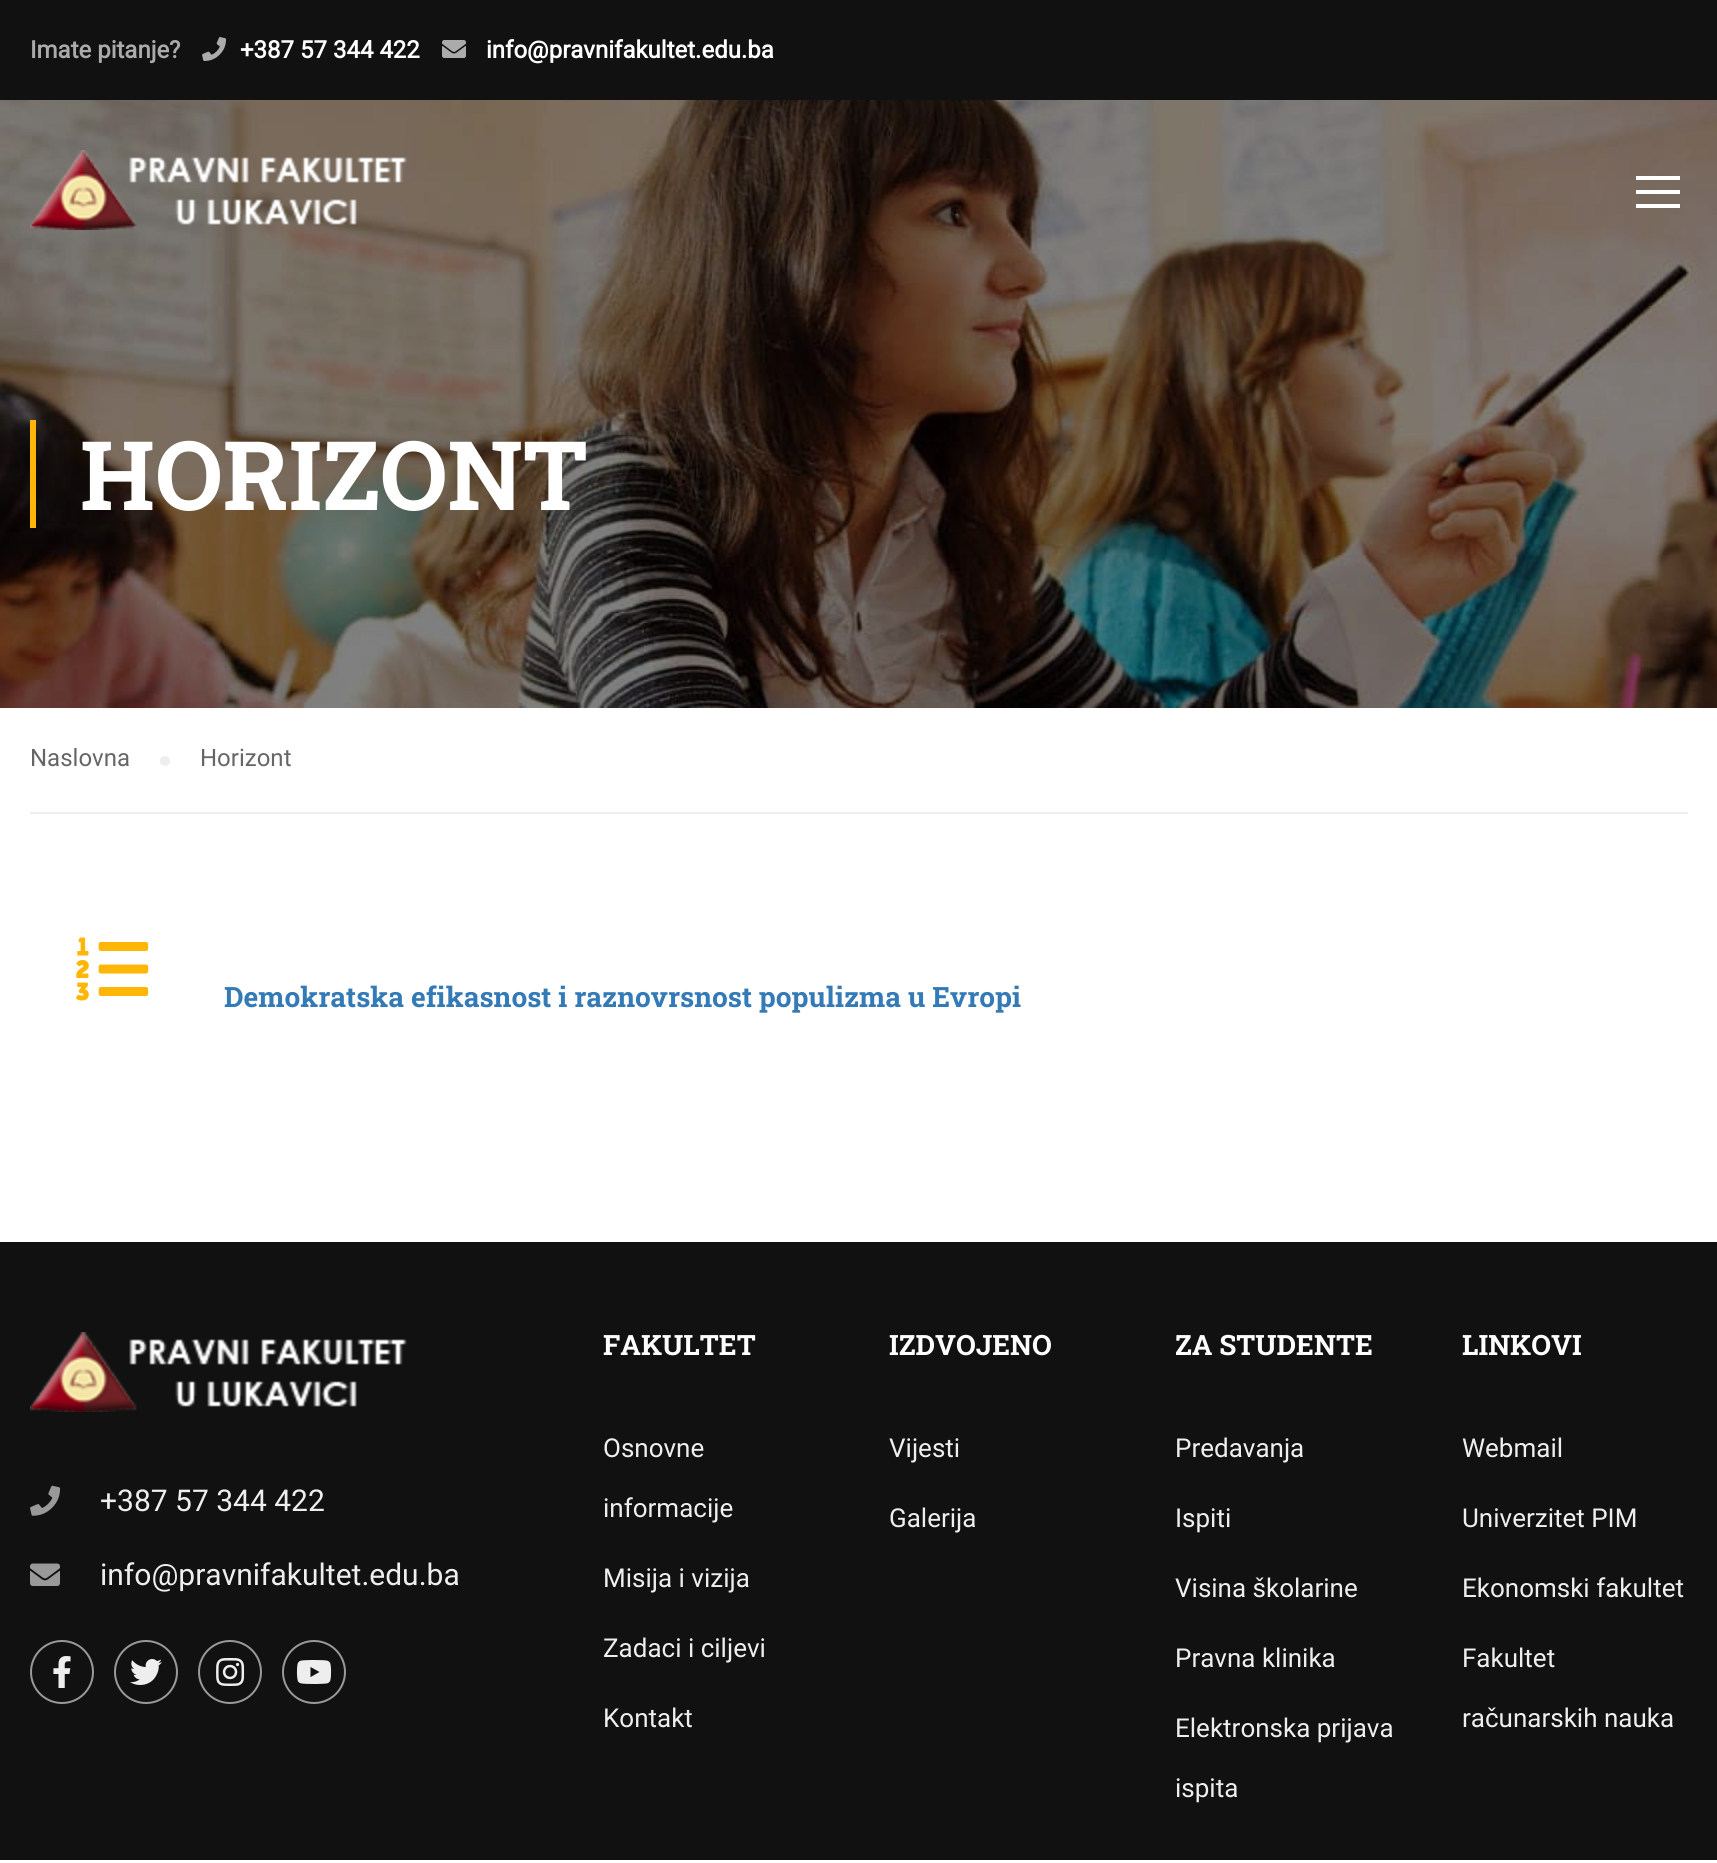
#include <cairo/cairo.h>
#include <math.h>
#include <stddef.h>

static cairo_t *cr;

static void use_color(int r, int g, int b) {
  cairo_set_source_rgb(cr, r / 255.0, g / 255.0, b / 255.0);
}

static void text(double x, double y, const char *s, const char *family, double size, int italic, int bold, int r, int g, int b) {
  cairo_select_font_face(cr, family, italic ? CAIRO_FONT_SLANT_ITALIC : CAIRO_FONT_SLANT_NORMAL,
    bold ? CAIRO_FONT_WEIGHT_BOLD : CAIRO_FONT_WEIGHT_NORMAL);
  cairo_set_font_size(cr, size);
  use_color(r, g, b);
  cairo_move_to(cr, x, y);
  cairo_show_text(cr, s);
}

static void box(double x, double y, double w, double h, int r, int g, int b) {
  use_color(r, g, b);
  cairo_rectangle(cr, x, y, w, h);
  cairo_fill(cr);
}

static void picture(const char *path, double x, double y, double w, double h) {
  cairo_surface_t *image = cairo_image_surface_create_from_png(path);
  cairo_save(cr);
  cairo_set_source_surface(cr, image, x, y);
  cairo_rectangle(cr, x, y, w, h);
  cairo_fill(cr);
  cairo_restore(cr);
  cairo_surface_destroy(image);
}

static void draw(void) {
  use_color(255, 255, 255);
  cairo_paint(cr);
  box(0, 0, 1717, 100, 17, 17, 17);
  picture("img_01.png", 202, 37, 25, 24);
  picture("img_02.png", 442, 40, 24, 18);
  picture("img_04.png", 0, 100, 1717, 608);
  picture("img_03.png", 30, 150, 377, 80);
  box(1636, 176, 44, 4, 255, 255, 255);
  box(1636, 190, 44, 4, 255, 255, 255);
  box(1636, 204, 44, 4, 255, 255, 255);
  box(30, 420, 6, 108, 255, 182, 6);
  box(30, 812, 1658, 2, 238, 238, 238);
  cairo_arc(cr, 165, 761, 5, 0, 2 * M_PI);
  cairo_fill(cr);
  picture("img_05.png", 76, 937, 73, 64);
  box(0, 1242, 1717, 618, 17, 17, 17);
  picture("img_06.png", 30, 1332, 377, 80);
  picture("img_07.png", 30, 1485, 31, 31);
  picture("img_08.png", 30, 1563, 30, 23);
  cairo_arc(cr, 62, 1672, 31, 0, 2 * M_PI);
  use_color(153, 153, 153);
  cairo_stroke(cr);
  picture("img_09.png", 53, 1656, 18, 32);
  cairo_arc(cr, 146, 1672, 31, 0, 2 * M_PI);
  cairo_stroke(cr);
  picture("img_10.png", 130, 1659, 32, 26);
  cairo_arc(cr, 230, 1672, 31, 0, 2 * M_PI);
  cairo_stroke(cr);
  picture("img_11.png", 216, 1658, 29, 28);
  cairo_arc(cr, 314, 1672, 31, 0, 2 * M_PI);
  cairo_stroke(cr);
  picture("img_12.png", 296, 1660, 36, 24);
  text(30, 58, "Imate pitanje?", "Roboto", 24, 0, 1, 171, 171, 171);
  text(240, 58, "+387 57 344 422", "Roboto", 24, 0, 1, 255, 255, 255);
  text(486, 58, "info@pravnifakultet.edu.ba", "Roboto", 24, 0, 1, 255, 255, 255);
  text(80, 510, "HORIZONT", "Roboto Slab", 96, 0, 1, 255, 255, 255);
  text(30, 766, "Naslovna", "Roboto", 24, 0, 0, 102, 102, 102);
  text(200, 766, "Horizont", "Roboto", 24, 0, 0, 102, 102, 102);
  text(224, 1007, "Demokratska efikasnost i raznovrsnost populizma u Evropi", "Roboto Slab", 28, 0, 1, 51, 122, 183);
  text(100, 1511, "+387 57 344 422", "Roboto", 30, 0, 0, 238, 238, 238);
  text(100, 1585, "info@pravnifakultet.edu.ba", "Roboto", 30, 0, 0, 238, 238, 238);
  text(603, 1355, "FAKULTET", "Roboto Slab", 28, 0, 1, 255, 255, 255);
  text(603, 1457, "Osnovne", "Roboto", 26, 0, 0, 238, 238, 238);
  text(603, 1517, "informacije", "Roboto", 26, 0, 0, 238, 238, 238);
  text(603, 1587, "Misija i vizija", "Roboto", 26, 0, 0, 238, 238, 238);
  text(603, 1657, "Zadaci i ciljevi", "Roboto", 26, 0, 0, 238, 238, 238);
  text(603, 1727, "Kontakt", "Roboto", 26, 0, 0, 238, 238, 238);
  text(889, 1355, "IZDVOJENO", "Roboto Slab", 28, 0, 1, 255, 255, 255);
  text(889, 1457, "Vijesti", "Roboto", 26, 0, 0, 238, 238, 238);
  text(889, 1527, "Galerija", "Roboto", 26, 0, 0, 238, 238, 238);
  text(1175, 1355, "ZA STUDENTE", "Roboto Slab", 28, 0, 1, 255, 255, 255);
  text(1175, 1457, "Predavanja", "Roboto", 26, 0, 0, 238, 238, 238);
  text(1175, 1527, "Ispiti", "Roboto", 26, 0, 0, 238, 238, 238);
  text(1175, 1597, "Visina školarine", "Roboto", 26, 0, 0, 238, 238, 238);
  text(1175, 1667, "Pravna klinika", "Roboto", 26, 0, 0, 238, 238, 238);
  text(1175, 1737, "Elektronska prijava", "Roboto", 26, 0, 0, 238, 238, 238);
  text(1175, 1797, "ispita", "Roboto", 26, 0, 0, 238, 238, 238);
  text(1462, 1355, "LINKOVI", "Roboto Slab", 28, 0, 1, 255, 255, 255);
  text(1462, 1457, "Webmail", "Roboto", 26, 0, 0, 238, 238, 238);
  text(1462, 1527, "Univerzitet PIM", "Roboto", 26, 0, 0, 238, 238, 238);
  text(1462, 1597, "Ekonomski fakultet", "Roboto", 26, 0, 0, 238, 238, 238);
  text(1462, 1667, "Fakultet", "Roboto", 26, 0, 0, 238, 238, 238);
  text(1462, 1727, "računarskih nauka", "Roboto", 26, 0, 0, 238, 238, 238);
}

int main(void) {
  cairo_surface_t *surface = cairo_image_surface_create(CAIRO_FORMAT_RGB24, 1717, 1863);
  cr = cairo_create(surface);
  cairo_font_options_t *options = cairo_font_options_create();
  cairo_font_options_set_hint_metrics(options, CAIRO_HINT_METRICS_OFF);
  cairo_font_options_set_hint_style(options, CAIRO_HINT_STYLE_NONE);
  cairo_set_font_options(cr, options);
  cairo_set_miter_limit(cr, 4);
  draw();
  cairo_surface_write_to_png(surface, "out.png");
  cairo_font_options_destroy(options);
  cairo_destroy(cr);
  cairo_surface_destroy(surface);
  return 0;
}
